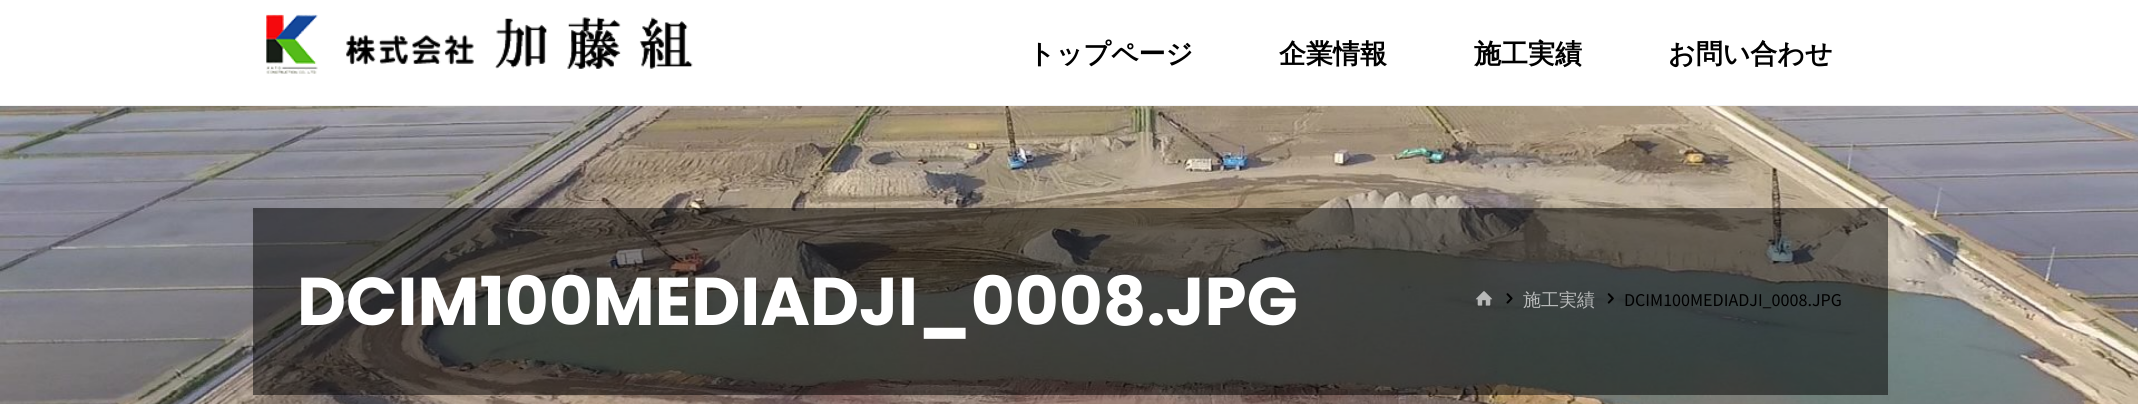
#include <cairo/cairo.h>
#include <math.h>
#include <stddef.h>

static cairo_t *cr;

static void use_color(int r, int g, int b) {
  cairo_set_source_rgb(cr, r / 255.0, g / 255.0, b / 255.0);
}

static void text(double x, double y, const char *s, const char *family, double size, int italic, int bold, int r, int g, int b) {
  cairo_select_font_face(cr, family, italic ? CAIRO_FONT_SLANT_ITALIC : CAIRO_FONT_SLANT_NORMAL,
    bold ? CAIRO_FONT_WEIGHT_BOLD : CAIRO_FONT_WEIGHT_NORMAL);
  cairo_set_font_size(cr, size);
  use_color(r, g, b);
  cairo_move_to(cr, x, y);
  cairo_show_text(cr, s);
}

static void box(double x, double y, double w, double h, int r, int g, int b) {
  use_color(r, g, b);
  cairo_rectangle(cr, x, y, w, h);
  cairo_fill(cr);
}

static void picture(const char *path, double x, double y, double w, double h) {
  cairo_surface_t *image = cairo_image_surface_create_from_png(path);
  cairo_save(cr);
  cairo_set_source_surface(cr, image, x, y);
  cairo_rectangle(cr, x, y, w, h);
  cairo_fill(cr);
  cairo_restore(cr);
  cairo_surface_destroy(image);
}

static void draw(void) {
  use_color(255, 255, 255);
  cairo_paint(cr);
  box(0, 105, 2138, 1, 242, 242, 242);
  picture("img_01.png", 266, 14, 427, 60);
  picture("img_02.png", 0, 106, 2138, 298);
  cairo_set_source_rgba(cr, 0, 0, 0, 0.5);
  cairo_rectangle(cr, 253, 208, 1635, 187);
  cairo_fill(cr);
  picture("img_03.png", 1475, 291, 18, 15);
  picture("img_04.png", 1506, 293, 7, 11);
  picture("img_05.png", 1607, 293, 7, 11);
  text(1028, 63, "トップページ", "WenQuanYi Zen Hei", 27, 0, 1, 0, 0, 0);
  text(1279, 63, "企業情報", "WenQuanYi Zen Hei", 27, 0, 1, 0, 0, 0);
  text(1474, 63, "施工実績", "WenQuanYi Zen Hei", 27, 0, 1, 0, 0, 0);
  text(1668, 63, "お問い合わせ", "WenQuanYi Zen Hei", 27, 0, 1, 0, 0, 0);
  text(297, 325, "DCIM100MEDIADJI_0008.JPG", "Poppins", 67.5, 0, 1, 255, 255, 255);
  text(1523, 306, "施工実績", "WenQuanYi Zen Hei Medium", 18, 0, 0, 184, 186, 186);
  text(1624, 306, "DCIM100MEDIADJI_0008.JPG", "Source Sans Pro", 18, 0, 0, 0, 0, 0);
}

int main(void) {
  cairo_surface_t *surface = cairo_image_surface_create(CAIRO_FORMAT_RGB24, 2138, 404);
  cr = cairo_create(surface);
  cairo_font_options_t *options = cairo_font_options_create();
  cairo_font_options_set_hint_metrics(options, CAIRO_HINT_METRICS_OFF);
  cairo_font_options_set_hint_style(options, CAIRO_HINT_STYLE_NONE);
  cairo_set_font_options(cr, options);
  cairo_set_miter_limit(cr, 4);
  draw();
  cairo_surface_write_to_png(surface, "out.png");
  cairo_font_options_destroy(options);
  cairo_destroy(cr);
  cairo_surface_destroy(surface);
  return 0;
}
